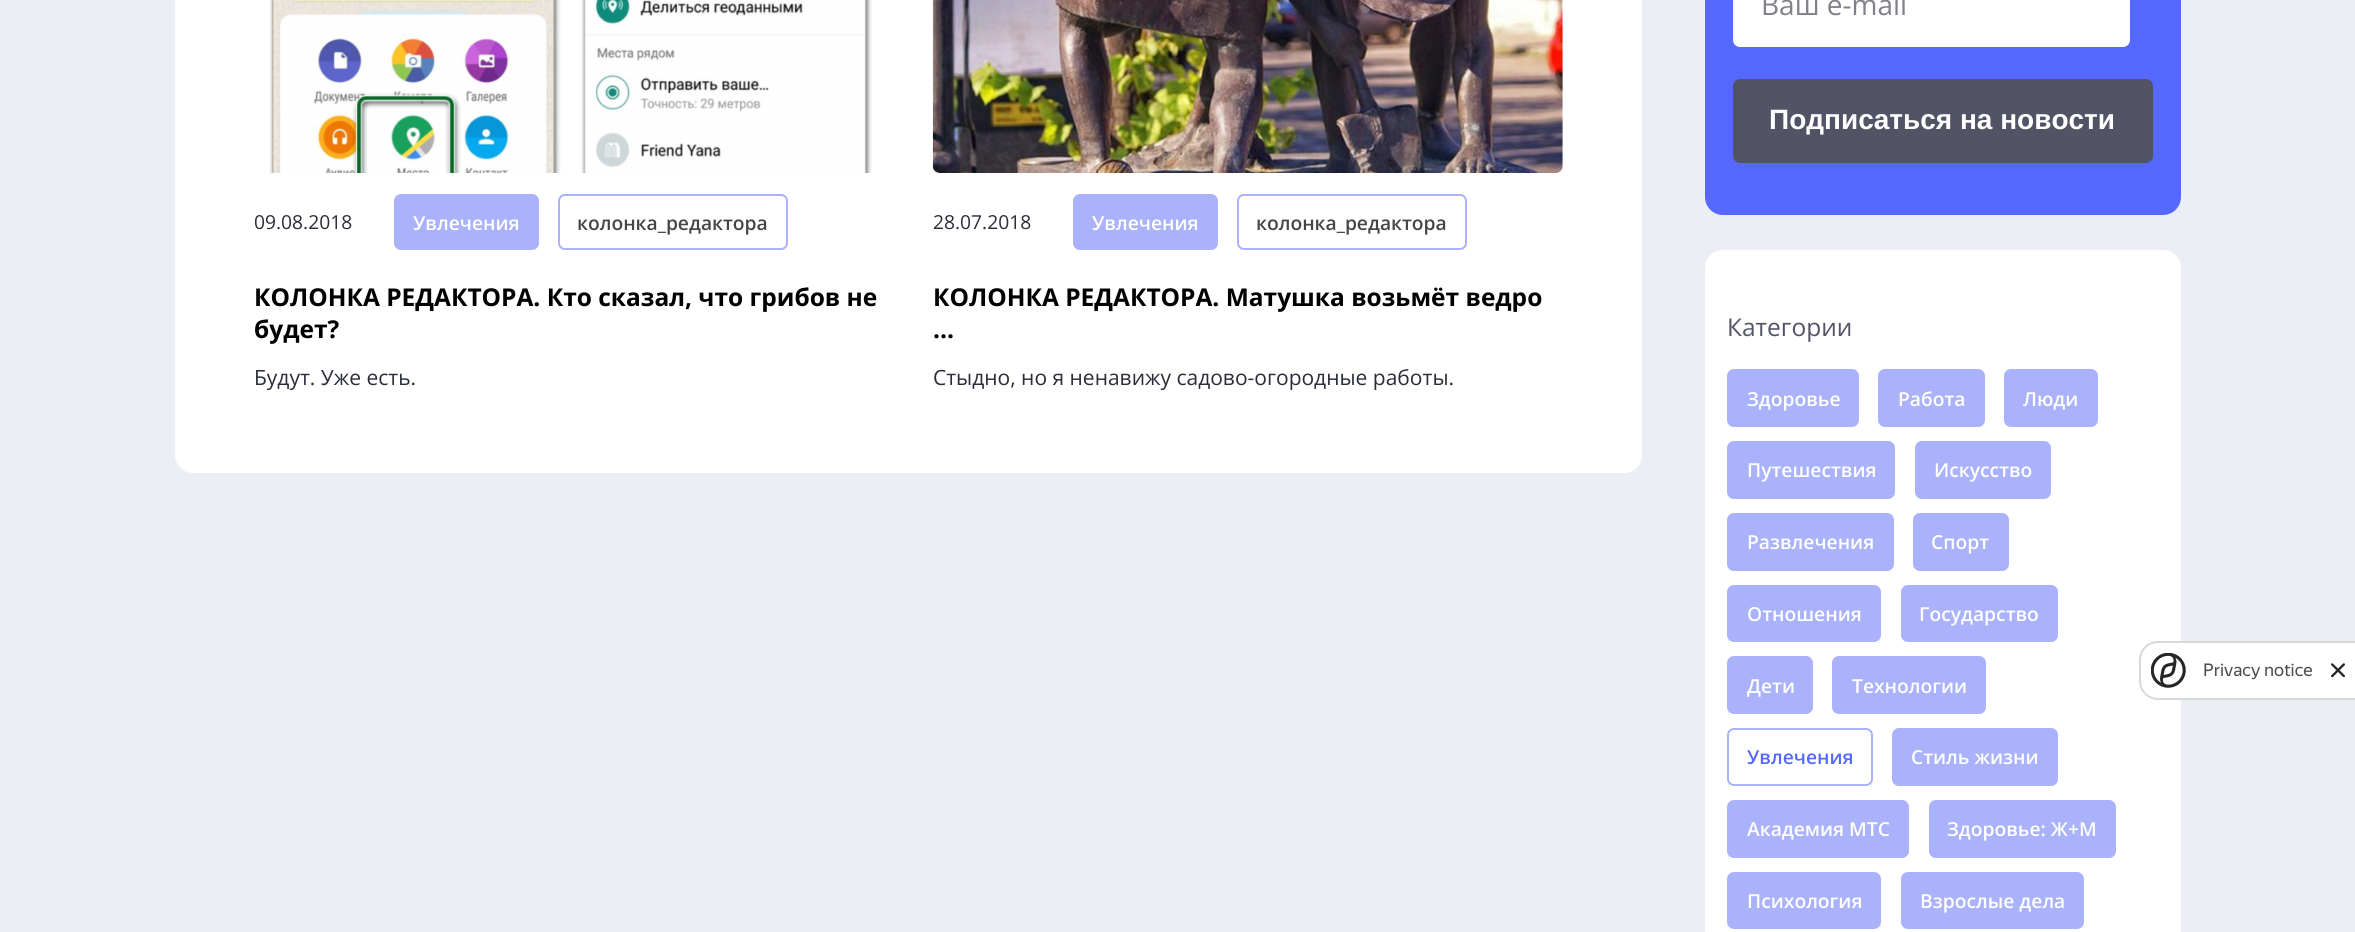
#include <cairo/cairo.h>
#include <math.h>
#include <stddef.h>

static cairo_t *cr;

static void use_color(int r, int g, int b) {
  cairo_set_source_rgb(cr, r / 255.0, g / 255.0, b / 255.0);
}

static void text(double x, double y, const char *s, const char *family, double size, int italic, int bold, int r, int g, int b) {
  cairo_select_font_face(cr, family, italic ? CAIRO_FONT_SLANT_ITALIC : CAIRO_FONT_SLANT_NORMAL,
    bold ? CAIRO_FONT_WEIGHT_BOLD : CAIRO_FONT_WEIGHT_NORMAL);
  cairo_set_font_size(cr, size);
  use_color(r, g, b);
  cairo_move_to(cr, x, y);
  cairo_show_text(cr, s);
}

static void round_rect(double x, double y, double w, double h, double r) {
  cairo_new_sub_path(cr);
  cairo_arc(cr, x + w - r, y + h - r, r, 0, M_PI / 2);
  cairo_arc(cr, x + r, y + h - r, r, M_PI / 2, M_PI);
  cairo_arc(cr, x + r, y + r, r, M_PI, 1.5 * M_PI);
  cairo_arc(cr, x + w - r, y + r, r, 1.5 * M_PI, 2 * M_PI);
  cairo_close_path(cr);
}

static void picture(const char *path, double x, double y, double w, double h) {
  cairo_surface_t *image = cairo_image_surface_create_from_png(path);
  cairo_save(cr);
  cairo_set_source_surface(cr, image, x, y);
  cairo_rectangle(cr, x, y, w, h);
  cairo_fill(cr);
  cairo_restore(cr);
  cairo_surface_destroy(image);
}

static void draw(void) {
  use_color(235, 238, 245);
  cairo_paint(cr);
  use_color(255, 255, 255);
  round_rect(175, -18, 1467, 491, 18);
  cairo_fill(cr);
  picture("img_01.png", 269, 0, 603, 173);
  use_color(169, 178, 250);
  round_rect(395, 195, 143, 54, 6);
  cairo_fill_preserve(cr);
  cairo_stroke(cr);
  round_rect(559, 195, 228, 54, 6);
  cairo_stroke(cr);
  picture("img_02.png", 932, 0, 631, 173);
  round_rect(1074, 195, 143, 54, 6);
  cairo_fill_preserve(cr);
  cairo_stroke(cr);
  round_rect(1238, 195, 228, 54, 6);
  cairo_stroke(cr);
  use_color(85, 104, 255);
  round_rect(1705, -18, 476, 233, 18);
  cairo_fill(cr);
  use_color(255, 255, 255);
  round_rect(1733, -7, 397, 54, 7);
  cairo_fill(cr);
  use_color(82, 84, 102);
  round_rect(1734, 80, 418, 82, 6);
  cairo_fill_preserve(cr);
  cairo_stroke(cr);
  use_color(255, 255, 255);
  round_rect(1705, 250, 476, 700, 18);
  cairo_fill(cr);
  use_color(169, 178, 250);
  round_rect(1728, 370, 130, 56, 6);
  cairo_fill_preserve(cr);
  cairo_stroke(cr);
  round_rect(1879, 370, 105, 56, 6);
  cairo_fill_preserve(cr);
  cairo_stroke(cr);
  round_rect(2005, 370, 92, 56, 6);
  cairo_fill_preserve(cr);
  cairo_stroke(cr);
  round_rect(1728, 442, 166, 56, 6);
  cairo_fill_preserve(cr);
  cairo_stroke(cr);
  round_rect(1916, 442, 134, 56, 6);
  cairo_fill_preserve(cr);
  cairo_stroke(cr);
  round_rect(1728, 514, 165, 56, 6);
  cairo_fill_preserve(cr);
  cairo_stroke(cr);
  round_rect(1914, 514, 94, 56, 6);
  cairo_fill_preserve(cr);
  cairo_stroke(cr);
  round_rect(1728, 586, 152, 55, 6);
  cairo_fill_preserve(cr);
  cairo_stroke(cr);
  round_rect(1902, 586, 155, 55, 6);
  cairo_fill_preserve(cr);
  cairo_stroke(cr);
  round_rect(1728, 657, 84, 56, 6);
  cairo_fill_preserve(cr);
  cairo_stroke(cr);
  round_rect(1833, 657, 152, 56, 6);
  cairo_fill_preserve(cr);
  cairo_stroke(cr);
  round_rect(1728, 729, 144, 56, 6);
  cairo_stroke(cr);
  round_rect(1893, 729, 164, 56, 6);
  cairo_fill_preserve(cr);
  cairo_stroke(cr);
  round_rect(1728, 801, 180, 56, 6);
  cairo_fill_preserve(cr);
  cairo_stroke(cr);
  round_rect(1930, 801, 185, 56, 6);
  cairo_fill_preserve(cr);
  cairo_stroke(cr);
  round_rect(1728, 873, 152, 55, 6);
  cairo_fill_preserve(cr);
  cairo_stroke(cr);
  round_rect(1902, 873, 181, 55, 6);
  cairo_fill_preserve(cr);
  cairo_stroke(cr);
  use_color(255, 255, 255);
  round_rect(2140, 642, 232, 57, 18);
  cairo_fill_preserve(cr);
  use_color(217, 217, 217);
  cairo_stroke(cr);
  picture("img_03.png", 2151, 653, 35, 35);
  picture("img_04.png", 2331, 663, 14, 14);
  text(254, 229, "09.08.2018", "Open Sans", 19.25, 0, 0, 43, 45, 58);
  text(413, 230, "Увлечения", "Open Sans SemiBold", 19.25, 0, 0, 255, 255, 255);
  text(577, 230, "колонка_редактора", "Open Sans SemiBold", 19.25, 0, 0, 70, 68, 68);
  text(254, 306, "КОЛОНКА РЕДАКТОРА. Кто сказал, что грибов не", "Open Sans", 24.5, 0, 1, 0, 0, 0);
  text(254, 338, "будет?", "Open Sans", 24.5, 0, 1, 0, 0, 0);
  text(254, 385, "Будут. Уже есть.", "Open Sans", 21, 0, 0, 43, 45, 58);
  text(933, 229, "28.07.2018", "Open Sans", 19.25, 0, 0, 43, 45, 58);
  text(1092, 230, "Увлечения", "Open Sans SemiBold", 19.25, 0, 0, 255, 255, 255);
  text(1256, 230, "колонка_редактора", "Open Sans SemiBold", 19.25, 0, 0, 70, 68, 68);
  text(933, 306, "КОЛОНКА РЕДАКТОРА. Матушка возьмёт ведро", "Open Sans", 24.5, 0, 1, 0, 0, 0);
  text(933, 338, "...", "Open Sans", 24.5, 0, 1, 0, 0, 0);
  text(933, 385, "Стыдно, но я ненавижу садово-огородные работы.", "Open Sans", 21, 0, 0, 43, 45, 58);
  text(1761, 15, "Ваш e-mail", "Open Sans", 28, 0, 0, 128, 129, 137);
  text(1769, 129, "Подписаться на новости", "Liberation Sans", 28, 0, 1, 255, 255, 255);
  text(1727, 336, "Категории", "Open Sans", 24.5, 0, 0, 82, 84, 102);
  text(1747, 406, "Здоровье", "Open Sans SemiBold", 19.25, 0, 0, 255, 255, 255);
  text(1898, 406, "Работа", "Open Sans SemiBold", 19.25, 0, 0, 255, 255, 255);
  text(2023, 406, "Люди", "Open Sans SemiBold", 19.25, 0, 0, 255, 255, 255);
  text(1747, 477, "Путешествия", "Open Sans SemiBold", 19.25, 0, 0, 255, 255, 255);
  text(1934, 477, "Искусство", "Open Sans SemiBold", 19.25, 0, 0, 255, 255, 255);
  text(1747, 549, "Развлечения", "Open Sans SemiBold", 19.25, 0, 0, 255, 255, 255);
  text(1931, 549, "Спорт", "Open Sans SemiBold", 19.25, 0, 0, 255, 255, 255);
  text(1747, 621, "Отношения", "Open Sans SemiBold", 19.25, 0, 0, 255, 255, 255);
  text(1919, 621, "Государство", "Open Sans SemiBold", 19.25, 0, 0, 255, 255, 255);
  text(1747, 693, "Дети", "Open Sans SemiBold", 19.25, 0, 0, 255, 255, 255);
  text(1852, 693, "Технологии", "Open Sans SemiBold", 19.25, 0, 0, 255, 255, 255);
  text(1747, 764, "Увлечения", "Open Sans SemiBold", 19.25, 0, 0, 85, 104, 255);
  text(1911, 764, "Стиль жизни", "Open Sans SemiBold", 19.25, 0, 0, 255, 255, 255);
  text(1747, 836, "Академия МТС", "Open Sans SemiBold", 19.25, 0, 0, 255, 255, 255);
  text(1947, 836, "Здоровье: Ж+М", "Open Sans SemiBold", 19.25, 0, 0, 255, 255, 255);
  text(1747, 908, "Психология", "Open Sans SemiBold", 19.25, 0, 0, 255, 255, 255);
  text(1920, 908, "Взрослые дела", "Open Sans SemiBold", 19.25, 0, 0, 255, 255, 255);
  text(2203, 676, "Privacy notice", "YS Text", 17.5, 0, 0, 77, 77, 77);
}

int main(void) {
  cairo_surface_t *surface = cairo_image_surface_create(CAIRO_FORMAT_RGB24, 2355, 932);
  cr = cairo_create(surface);
  cairo_font_options_t *options = cairo_font_options_create();
  cairo_font_options_set_hint_metrics(options, CAIRO_HINT_METRICS_OFF);
  cairo_font_options_set_hint_style(options, CAIRO_HINT_STYLE_NONE);
  cairo_set_font_options(cr, options);
  cairo_set_miter_limit(cr, 4);
  draw();
  cairo_surface_write_to_png(surface, "out.png");
  cairo_font_options_destroy(options);
  cairo_destroy(cr);
  cairo_surface_destroy(surface);
  return 0;
}
